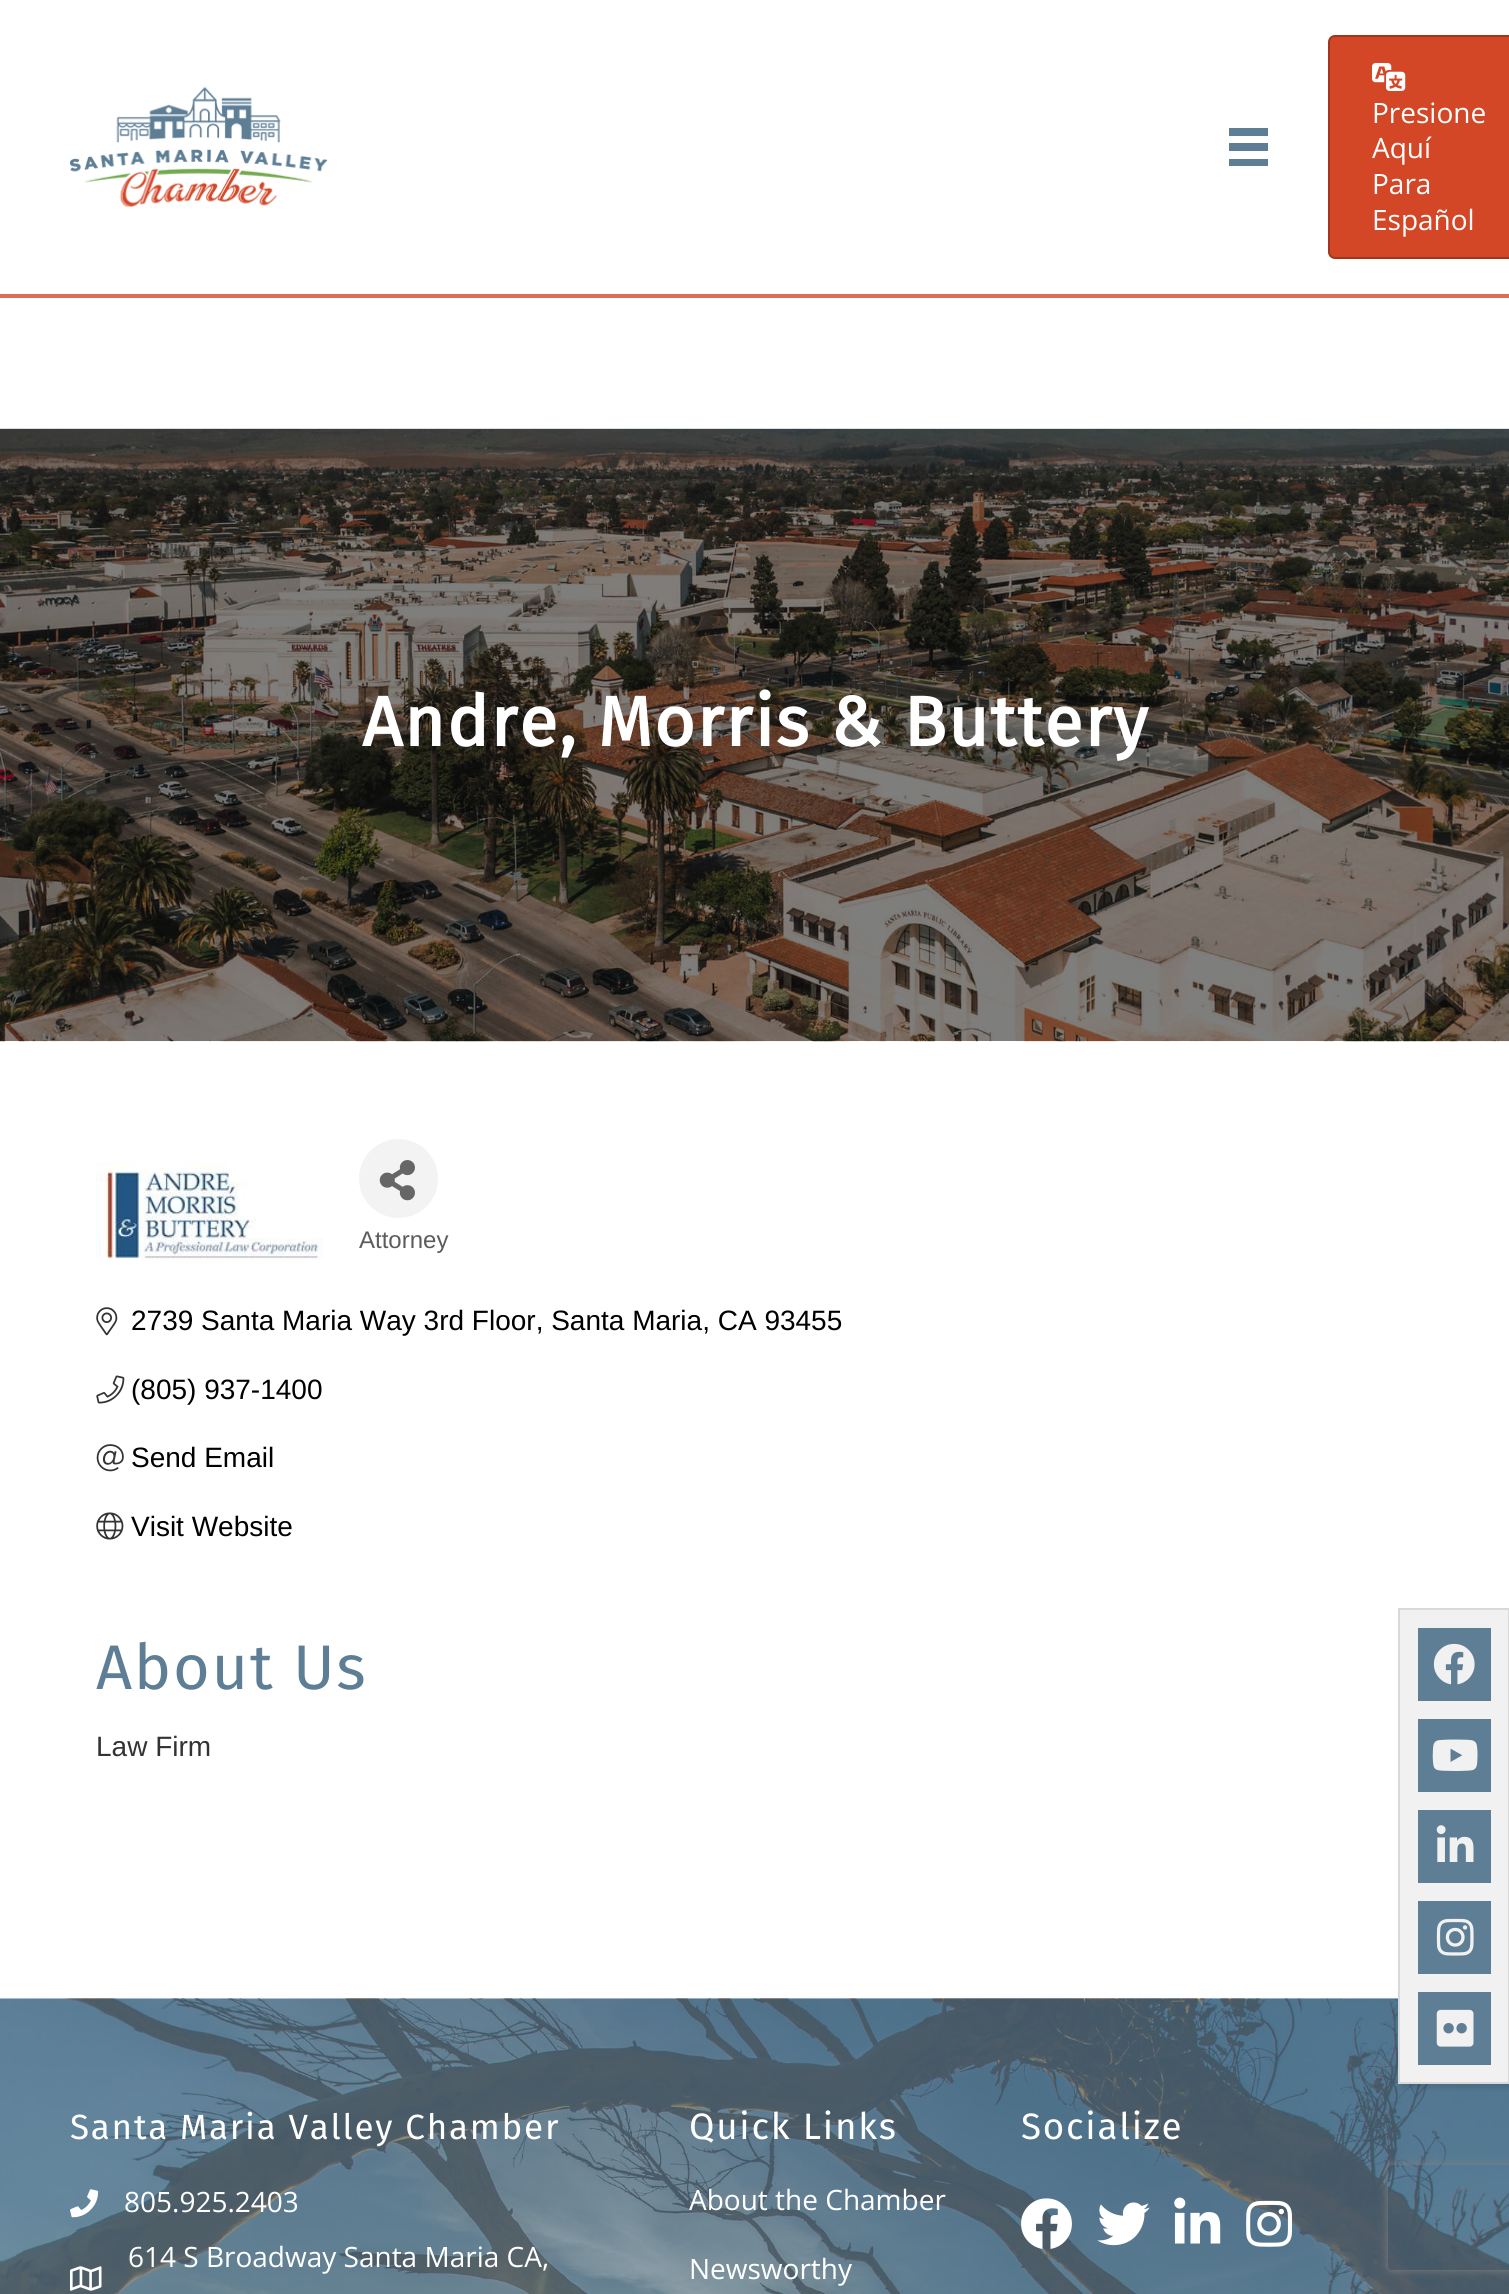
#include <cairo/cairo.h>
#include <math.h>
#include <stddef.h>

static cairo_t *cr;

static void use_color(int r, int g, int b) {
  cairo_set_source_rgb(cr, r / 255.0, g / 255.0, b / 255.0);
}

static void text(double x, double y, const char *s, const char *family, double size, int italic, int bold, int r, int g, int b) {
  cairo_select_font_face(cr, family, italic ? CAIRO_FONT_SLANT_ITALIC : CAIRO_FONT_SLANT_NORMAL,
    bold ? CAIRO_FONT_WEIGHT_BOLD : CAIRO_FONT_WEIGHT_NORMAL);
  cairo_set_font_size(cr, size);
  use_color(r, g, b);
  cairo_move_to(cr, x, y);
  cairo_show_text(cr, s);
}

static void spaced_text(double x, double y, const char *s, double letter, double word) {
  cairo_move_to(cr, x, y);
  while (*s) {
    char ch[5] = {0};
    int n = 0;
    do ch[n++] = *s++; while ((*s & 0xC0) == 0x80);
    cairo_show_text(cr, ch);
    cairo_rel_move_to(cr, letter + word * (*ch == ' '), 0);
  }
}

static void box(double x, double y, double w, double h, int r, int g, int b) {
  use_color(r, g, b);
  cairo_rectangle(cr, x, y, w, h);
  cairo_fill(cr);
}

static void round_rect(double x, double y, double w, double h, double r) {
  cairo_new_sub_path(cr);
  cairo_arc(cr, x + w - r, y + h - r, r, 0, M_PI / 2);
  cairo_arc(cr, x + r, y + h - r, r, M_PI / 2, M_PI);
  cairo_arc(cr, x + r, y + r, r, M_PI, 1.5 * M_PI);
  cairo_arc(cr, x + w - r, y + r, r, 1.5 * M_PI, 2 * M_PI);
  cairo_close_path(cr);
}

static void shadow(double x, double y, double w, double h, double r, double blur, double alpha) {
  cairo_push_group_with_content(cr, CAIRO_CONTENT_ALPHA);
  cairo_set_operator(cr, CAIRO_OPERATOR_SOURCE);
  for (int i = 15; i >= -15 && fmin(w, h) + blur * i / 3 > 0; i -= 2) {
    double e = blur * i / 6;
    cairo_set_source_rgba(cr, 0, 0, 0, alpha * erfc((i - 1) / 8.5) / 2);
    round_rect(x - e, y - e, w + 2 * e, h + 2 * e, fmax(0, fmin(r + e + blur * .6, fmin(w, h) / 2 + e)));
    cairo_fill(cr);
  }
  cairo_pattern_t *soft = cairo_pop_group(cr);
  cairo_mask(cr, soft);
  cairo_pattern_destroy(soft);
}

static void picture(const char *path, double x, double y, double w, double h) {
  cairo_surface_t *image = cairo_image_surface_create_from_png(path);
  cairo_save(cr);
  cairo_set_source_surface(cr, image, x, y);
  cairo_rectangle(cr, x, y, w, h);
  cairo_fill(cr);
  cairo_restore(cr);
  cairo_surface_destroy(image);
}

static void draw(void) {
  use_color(255, 255, 255);
  cairo_paint(cr);
  box(0, 294, 1509, 4, 220, 110, 84);
  picture("img_01.png", 70, 87, 258, 120);
  box(1229, 128, 39, 8, 94, 126, 149);
  box(1229, 143, 39, 8, 94, 126, 149);
  box(1229, 159, 39, 7, 94, 126, 149);
  use_color(211, 71, 39);
  round_rect(1329, 36, 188, 222, 6);
  cairo_fill_preserve(cr);
  use_color(159, 54, 29);
  cairo_stroke(cr);
  picture("img_02.png", 1372, 63, 34, 28);
  picture("img_15.png", 0, 1998, 1509, 296);
  use_color(0, 0, 0);
  shadow(1402, 1612, 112, 476, 0, 2.5, 0.1);
  use_color(241, 241, 241);
  cairo_rectangle(cr, 1399, 1609, 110, 474);
  cairo_fill_preserve(cr);
  use_color(217, 217, 217);
  cairo_stroke(cr);
  box(1418, 1628, 73, 73, 94, 126, 149);
  picture("img_03.png", 1433, 1643, 42, 42);
  box(1418, 1719, 73, 73, 94, 126, 149);
  picture("img_04.png", 1432, 1739, 46, 32);
  box(1418, 1810, 73, 73, 94, 126, 149);
  picture("img_05.png", 1436, 1825, 38, 37);
  box(1418, 1901, 73, 73, 94, 126, 149);
  picture("img_06.png", 1436, 1918, 38, 38);
  box(1418, 1992, 73, 73, 94, 126, 149);
  picture("img_07.png", 1436, 2009, 38, 38);
  picture("img_08.png", 0, 428, 1509, 614);
  picture("img_09.png", 96, 1162, 227, 97);
  use_color(243, 243, 243);
  cairo_arc(cr, 398.5, 1178.5, 39.5, 0, 2 * M_PI);
  cairo_fill(cr);
  picture("img_10.png", 379, 1160, 36, 41);
  picture("img_11.png", 96, 1307, 22, 29);
  picture("img_12.png", 96, 1375, 29, 29);
  picture("img_13.png", 96, 1444, 28, 28);
  picture("img_14.png", 96, 1512, 28, 28);
  picture("img_16.png", 70, 2189, 28, 29);
  picture("img_17.png", 70, 2266, 32, 25);
  picture("img_18.png", 1021, 2198, 51, 51);
  picture("img_19.png", 1097, 2202, 53, 44);
  picture("img_20.png", 1174, 2197, 47, 47);
  picture("img_21.png", 1246, 2200, 47, 47);
  cairo_save(cr);
  cairo_set_fill_rule(cr, CAIRO_FILL_RULE_EVEN_ODD);
  cairo_new_path(cr);
  cairo_move_to(cr, 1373, 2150);
  cairo_line_to(cr, 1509, 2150);
  cairo_line_to(cr, 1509, 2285);
  cairo_line_to(cr, 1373, 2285);
  cairo_close_path(cr);
  cairo_move_to(cr, 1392, 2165);
  cairo_line_to(cr, 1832, 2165);
  cairo_curve_to(cr, 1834, 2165, 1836, 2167, 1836, 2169);
  cairo_line_to(cr, 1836, 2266);
  cairo_curve_to(cr, 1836, 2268, 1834, 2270, 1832, 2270);
  cairo_line_to(cr, 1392, 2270);
  cairo_curve_to(cr, 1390, 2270, 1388, 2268, 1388, 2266);
  cairo_line_to(cr, 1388, 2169);
  cairo_curve_to(cr, 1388, 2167, 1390, 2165, 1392, 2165);
  cairo_close_path(cr);
  cairo_clip(cr);
  use_color(128, 128, 128);
  shadow(1388, 2165, 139, 105, 4, 4.5, 1);
  cairo_restore(cr);
  text(1372, 123, "Presione", "Open Sans", 28, 0, 0, 255, 255, 255);
  text(1372, 158, "Aquí", "Open Sans", 28, 0, 0, 255, 255, 255);
  text(1372, 194, "Para", "Open Sans", 28, 0, 0, 255, 255, 255);
  text(1372, 230, "Español", "Open Sans", 28, 0, 0, 255, 255, 255);
  cairo_select_font_face(cr, "Fira Sans", CAIRO_FONT_SLANT_NORMAL, CAIRO_FONT_WEIGHT_BOLD);
  cairo_set_font_size(cr, 70);
  spaced_text(362, 746, "Andre, Morris & Buttery", 1.75, 0);
  text(359, 1248, "Attorney", "Liberation Sans", 24, 0, 0, 92, 92, 92);
  text(131, 1330, "2739 Santa Maria Way 3rd Floor, Santa Maria, CA 93455", "Liberation Sans", 28, 0, 0, 0, 0, 0);
  text(131, 1399, "(805) 937-1400", "Liberation Sans", 28, 0, 0, 0, 0, 0);
  text(131, 1467, "Send Email", "Liberation Sans", 28, 0, 0, 0, 0, 0);
  text(131, 1536, "Visit Website", "Liberation Sans", 28, 0, 0, 0, 0, 0);
  cairo_select_font_face(cr, "Fira Sans", CAIRO_FONT_SLANT_NORMAL, CAIRO_FONT_WEIGHT_NORMAL);
  cairo_set_font_size(cr, 63);
  use_color(94, 126, 149);
  spaced_text(96, 1689, "About Us", 1.75, 0);
  text(96, 1756, "Law Firm", "Liberation Sans", 28, 0, 0, 51, 51, 51);
  cairo_select_font_face(cr, "Fira Sans", CAIRO_FONT_SLANT_NORMAL, CAIRO_FONT_WEIGHT_NORMAL);
  cairo_set_font_size(cr, 35);
  use_color(255, 255, 255);
  spaced_text(70, 2139, "Santa Maria Valley Chamber", 1.75, 0);
  text(124, 2212, "805.925.2403", "Open Sans", 28, 0, 0, 255, 255, 255);
  text(128, 2267, "614 S Broadway Santa Maria CA,", "Open Sans", 28, 0, 0, 255, 255, 255);
  cairo_select_font_face(cr, "Fira Sans", CAIRO_FONT_SLANT_NORMAL, CAIRO_FONT_WEIGHT_NORMAL);
  cairo_set_font_size(cr, 36.75);
  spaced_text(689, 2139, "Quick Links", 1.75, 0);
  text(689, 2210, "About the Chamber", "Open Sans", 28, 0, 0, 255, 255, 255);
  text(689, 2279, "Newsworthy", "Open Sans", 28, 0, 0, 255, 255, 255);
  cairo_select_font_face(cr, "Fira Sans", CAIRO_FONT_SLANT_NORMAL, CAIRO_FONT_WEIGHT_NORMAL);
  cairo_set_font_size(cr, 36.75);
  spaced_text(1021, 2139, "Socialize", 1.75, 0);
}

int main(void) {
  cairo_surface_t *surface = cairo_image_surface_create(CAIRO_FORMAT_RGB24, 1509, 2294);
  cr = cairo_create(surface);
  cairo_font_options_t *options = cairo_font_options_create();
  cairo_font_options_set_hint_metrics(options, CAIRO_HINT_METRICS_OFF);
  cairo_font_options_set_hint_style(options, CAIRO_HINT_STYLE_NONE);
  cairo_set_font_options(cr, options);
  cairo_set_miter_limit(cr, 4);
  draw();
  cairo_surface_write_to_png(surface, "out.png");
  cairo_font_options_destroy(options);
  cairo_destroy(cr);
  cairo_surface_destroy(surface);
  return 0;
}
